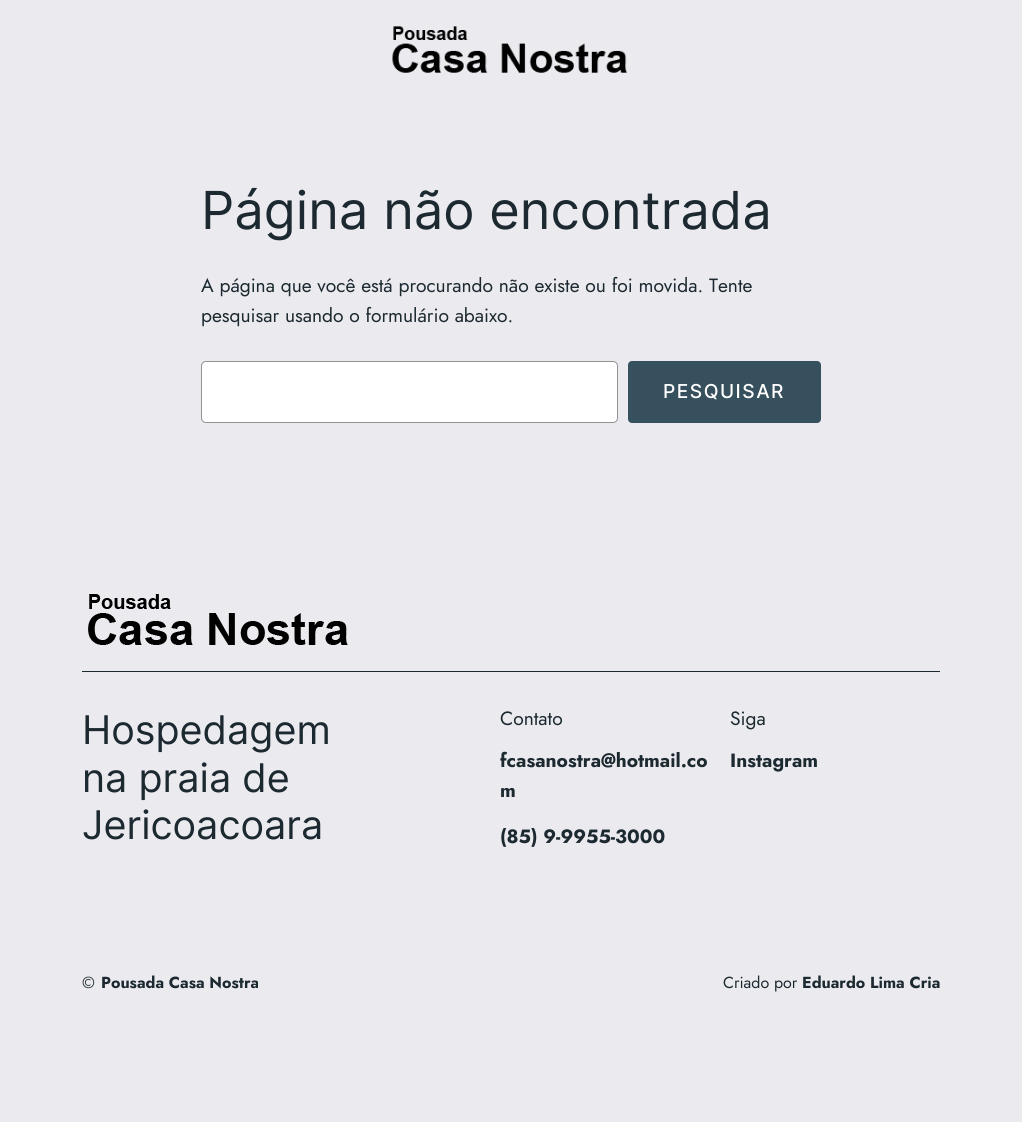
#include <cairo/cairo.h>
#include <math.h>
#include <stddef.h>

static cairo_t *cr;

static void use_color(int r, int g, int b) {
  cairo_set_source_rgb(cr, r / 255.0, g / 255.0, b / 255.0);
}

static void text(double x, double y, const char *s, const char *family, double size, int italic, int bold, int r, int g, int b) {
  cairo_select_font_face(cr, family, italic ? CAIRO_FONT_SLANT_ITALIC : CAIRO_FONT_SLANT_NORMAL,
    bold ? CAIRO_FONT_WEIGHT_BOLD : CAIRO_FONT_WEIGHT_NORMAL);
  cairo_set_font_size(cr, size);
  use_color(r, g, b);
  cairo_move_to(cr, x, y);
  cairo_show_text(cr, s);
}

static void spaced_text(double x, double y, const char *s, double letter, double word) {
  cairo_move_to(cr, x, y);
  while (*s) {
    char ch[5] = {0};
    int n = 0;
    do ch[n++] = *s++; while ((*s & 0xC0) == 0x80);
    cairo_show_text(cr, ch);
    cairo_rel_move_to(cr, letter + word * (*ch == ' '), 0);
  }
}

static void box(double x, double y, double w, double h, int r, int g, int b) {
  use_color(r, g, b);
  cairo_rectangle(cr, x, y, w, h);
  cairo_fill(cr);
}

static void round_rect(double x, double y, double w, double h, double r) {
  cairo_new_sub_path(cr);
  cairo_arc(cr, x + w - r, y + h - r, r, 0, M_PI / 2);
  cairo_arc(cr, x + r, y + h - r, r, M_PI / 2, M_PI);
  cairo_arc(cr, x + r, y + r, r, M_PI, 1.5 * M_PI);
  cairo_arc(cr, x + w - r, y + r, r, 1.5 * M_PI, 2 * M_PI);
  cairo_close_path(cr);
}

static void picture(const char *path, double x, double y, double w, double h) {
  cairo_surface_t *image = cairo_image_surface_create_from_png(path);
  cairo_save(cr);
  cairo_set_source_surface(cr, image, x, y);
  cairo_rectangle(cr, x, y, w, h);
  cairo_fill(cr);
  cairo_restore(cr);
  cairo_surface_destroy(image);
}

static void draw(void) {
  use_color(235, 235, 239);
  cairo_paint(cr);
  picture("img_01.png", 392, 26, 235, 47);
  use_color(255, 255, 255);
  round_rect(201.5, 361.5, 416, 61, 4.5);
  cairo_fill_preserve(cr);
  use_color(148, 148, 148);
  cairo_set_line_width(cr, 1);
  cairo_stroke(cr);
  use_color(55, 80, 93);
  round_rect(628, 361, 193, 62, 4);
  cairo_fill(cr);
  picture("img_02.png", 88, 594, 260, 51);
  box(82, 671, 858, 1, 28, 41, 48);
  text(201, 229, "Página não encontrada", "Inter", 52.4, 0, 0, 28, 41, 48);
  text(201, 292, "A página que você está procurando não existe ou foi movida. Tente", "Jost", 19.2, 0, 0, 28, 41, 48);
  text(201, 322, "pesquisar usando o formulário abaixo.", "Jost", 19.2, 0, 0, 28, 41, 48);
  cairo_select_font_face(cr, "Inter Medium", CAIRO_FONT_SLANT_NORMAL, CAIRO_FONT_WEIGHT_NORMAL);
  use_color(255, 255, 255);
  spaced_text(663, 398, "PESQUISAR", 1.5, 0);
  text(82, 744, "Hospedagem", "Inter", 39.5, 0, 0, 28, 41, 48);
  text(82, 792, "na praia de", "Inter", 39.5, 0, 0, 28, 41, 48);
  text(82, 839, "Jericoacoara", "Inter", 39.5, 0, 0, 28, 41, 48);
  text(500, 725, "Contato", "Jost", 19.2, 0, 0, 28, 41, 48);
  text(500, 767, "fcasanostra@hotmail.co", "Jost", 19.2, 0, 1, 28, 41, 48);
  text(500, 797, "m", "Jost", 19.2, 0, 1, 28, 41, 48);
  text(500, 843, "(85) 9-9955-3000", "Jost", 19.2, 0, 1, 28, 41, 48);
  text(730, 725, "Siga", "Jost", 19.2, 0, 0, 28, 41, 48);
  text(730, 767, "Instagram", "Jost", 19.2, 0, 1, 28, 41, 48);
  text(82, 988, "©", "Jost", 16, 0, 0, 28, 41, 48);
  text(101, 988, "Pousada Casa Nostra", "Jost", 16, 0, 1, 28, 41, 48);
  text(723, 988, "Criado por", "Jost", 16, 0, 0, 28, 41, 48);
  text(802, 988, "Eduardo Lima Cria", "Jost", 16, 0, 1, 28, 41, 48);
}

int main(void) {
  cairo_surface_t *surface = cairo_image_surface_create(CAIRO_FORMAT_RGB24, 1022, 1122);
  cr = cairo_create(surface);
  cairo_font_options_t *options = cairo_font_options_create();
  cairo_font_options_set_hint_metrics(options, CAIRO_HINT_METRICS_OFF);
  cairo_font_options_set_hint_style(options, CAIRO_HINT_STYLE_NONE);
  cairo_set_font_options(cr, options);
  cairo_set_miter_limit(cr, 4);
  draw();
  cairo_surface_write_to_png(surface, "out.png");
  cairo_font_options_destroy(options);
  cairo_destroy(cr);
  cairo_surface_destroy(surface);
  return 0;
}
